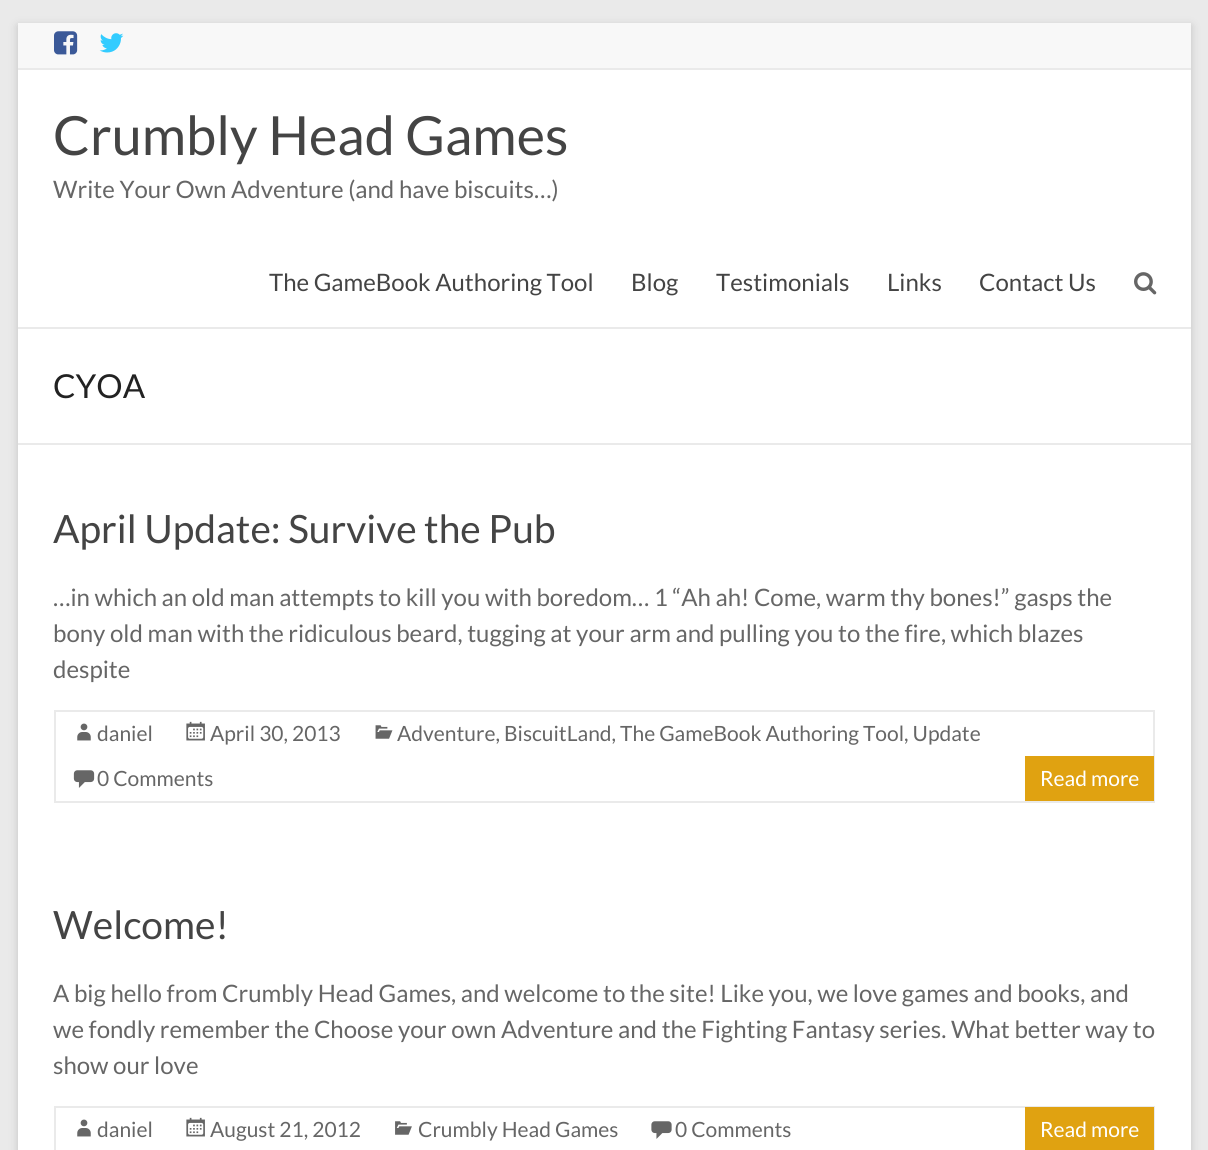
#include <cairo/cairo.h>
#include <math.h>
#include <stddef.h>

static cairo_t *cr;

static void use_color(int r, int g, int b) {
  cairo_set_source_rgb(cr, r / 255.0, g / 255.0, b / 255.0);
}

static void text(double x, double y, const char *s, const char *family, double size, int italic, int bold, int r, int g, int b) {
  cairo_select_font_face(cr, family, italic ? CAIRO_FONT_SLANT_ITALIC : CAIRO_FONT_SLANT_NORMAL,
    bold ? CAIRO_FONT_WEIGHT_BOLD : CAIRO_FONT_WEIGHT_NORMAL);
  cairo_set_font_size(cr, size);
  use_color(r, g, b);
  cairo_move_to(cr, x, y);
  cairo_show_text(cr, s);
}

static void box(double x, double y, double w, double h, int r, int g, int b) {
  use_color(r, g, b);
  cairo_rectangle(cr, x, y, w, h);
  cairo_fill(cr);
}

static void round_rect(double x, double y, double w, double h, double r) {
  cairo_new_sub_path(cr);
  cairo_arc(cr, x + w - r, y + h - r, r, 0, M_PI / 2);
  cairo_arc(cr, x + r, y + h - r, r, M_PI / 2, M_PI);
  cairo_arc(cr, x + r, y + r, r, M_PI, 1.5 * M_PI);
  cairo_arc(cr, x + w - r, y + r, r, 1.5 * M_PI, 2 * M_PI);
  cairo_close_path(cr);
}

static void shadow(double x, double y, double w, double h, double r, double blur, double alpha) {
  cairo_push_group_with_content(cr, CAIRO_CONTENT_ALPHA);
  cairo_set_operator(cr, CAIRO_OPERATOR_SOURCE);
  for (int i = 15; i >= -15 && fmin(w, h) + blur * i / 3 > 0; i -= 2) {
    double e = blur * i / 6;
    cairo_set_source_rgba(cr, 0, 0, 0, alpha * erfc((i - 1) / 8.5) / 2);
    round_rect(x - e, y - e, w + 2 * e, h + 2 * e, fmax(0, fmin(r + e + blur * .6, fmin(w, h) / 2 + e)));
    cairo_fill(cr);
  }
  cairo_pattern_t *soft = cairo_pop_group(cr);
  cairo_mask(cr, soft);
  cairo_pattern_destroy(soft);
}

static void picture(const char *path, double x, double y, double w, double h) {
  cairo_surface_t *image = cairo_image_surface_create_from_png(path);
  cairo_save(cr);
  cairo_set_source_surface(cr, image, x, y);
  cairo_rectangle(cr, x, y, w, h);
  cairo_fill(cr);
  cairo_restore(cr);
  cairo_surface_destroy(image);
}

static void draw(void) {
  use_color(234, 234, 234);
  cairo_paint(cr);
  use_color(100, 100, 100);
  shadow(18, 26, 1173, 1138, 0, 4.5, 0.3);
  box(18, 70, 1173, 1080, 255, 255, 255);
  box(18, 23, 1173, 45, 248, 248, 248);
  box(18, 68, 1173, 2, 234, 234, 234);
  picture("img_01.png", 54, 31, 24, 24);
  picture("img_02.png", 99, 33, 25, 20);
  box(18, 327, 1173, 2, 234, 234, 234);
  picture("img_03.png", 1134, 272, 23, 23);
  box(18, 443, 1173, 2, 234, 234, 234);
  cairo_rectangle(cr, 55, 711, 1099, 91);
  cairo_stroke(cr);
  picture("img_04.png", 77, 723, 14, 18);
  picture("img_05.png", 186, 721, 19, 20);
  picture("img_06.png", 375, 725, 18, 14);
  picture("img_07.png", 73, 770, 22, 18);
  box(1025, 756, 129, 45, 224, 162, 17);
  cairo_rectangle(cr, 55, 1107, 1099, 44);
  use_color(234, 234, 234);
  cairo_stroke(cr);
  picture("img_04.png", 77, 1119, 14, 18);
  picture("img_05.png", 186, 1117, 19, 20);
  picture("img_08.png", 395, 1121, 17, 14);
  picture("img_09.png", 651, 1121, 21, 18);
  box(1025, 1107, 129, 43, 224, 162, 17);
  text(53, 155, "Crumbly Head Games", "Lato", 54, 0, 0, 68, 68, 68);
  text(53, 198, "Write Your Own Adventure (and have biscuits…)", "Lato", 24, 0, 0, 102, 102, 102);
  text(269, 291, "The GameBook Authoring Tool", "Lato", 24, 0, 0, 68, 68, 68);
  text(631, 291, "Blog", "Lato", 24, 0, 0, 68, 68, 68);
  text(716, 291, "Testimonials", "Lato", 24, 0, 0, 68, 68, 68);
  text(887, 291, "Links", "Lato", 24, 0, 0, 68, 68, 68);
  text(979, 291, "Contact Us", "Lato", 24, 0, 0, 68, 68, 68);
  text(53, 398, "CYOA", "Lato", 33, 0, 0, 34, 34, 34);
  text(53, 543, "April Update: Survive the Pub", "Lato", 39, 0, 0, 68, 68, 68);
  text(53, 606, "…in which an old man attempts to kill you with boredom… 1 “Ah ah! Come, warm thy bones!” gasps the", "Lato", 24, 0, 0, 102, 102, 102);
  text(53, 642, "bony old man with the ridiculous beard, tugging at your arm and pulling you to the fire, which blazes", "Lato", 24, 0, 0, 102, 102, 102);
  text(53, 678, "despite", "Lato", 24, 0, 0, 102, 102, 102);
  text(97, 741, "daniel", "Lato", 21, 0, 0, 102, 102, 102);
  text(210, 741, "April 30, 2013", "Lato", 21, 0, 0, 102, 102, 102);
  text(397, 741, "Adventure, BiscuitLand, The GameBook Authoring Tool, Update", "Lato", 21, 0, 0, 102, 102, 102);
  text(97, 786, "0 Comments", "Lato", 21, 0, 0, 102, 102, 102);
  text(1040, 786, "Read more", "Lato", 21, 0, 0, 255, 255, 255);
  text(53, 939, "Welcome!", "Lato", 39, 0, 0, 68, 68, 68);
  text(53, 1002, "A big hello from Crumbly Head Games, and welcome to the site! Like you, we love games and books, and", "Lato", 24, 0, 0, 102, 102, 102);
  text(53, 1038, "we fondly remember the Choose your own Adventure and the Fighting Fantasy series. What better way to", "Lato", 24, 0, 0, 102, 102, 102);
  text(53, 1074, "show our love", "Lato", 24, 0, 0, 102, 102, 102);
  text(97, 1137, "daniel", "Lato", 21, 0, 0, 102, 102, 102);
  text(210, 1137, "August 21, 2012", "Lato", 21, 0, 0, 102, 102, 102);
  text(418, 1137, "Crumbly Head Games", "Lato", 21, 0, 0, 102, 102, 102);
  text(675, 1137, "0 Comments", "Lato", 21, 0, 0, 102, 102, 102);
  text(1040, 1137, "Read more", "Lato", 21, 0, 0, 255, 255, 255);
}

int main(void) {
  cairo_surface_t *surface = cairo_image_surface_create(CAIRO_FORMAT_RGB24, 1208, 1150);
  cr = cairo_create(surface);
  cairo_font_options_t *options = cairo_font_options_create();
  cairo_font_options_set_hint_metrics(options, CAIRO_HINT_METRICS_OFF);
  cairo_font_options_set_hint_style(options, CAIRO_HINT_STYLE_NONE);
  cairo_set_font_options(cr, options);
  cairo_set_miter_limit(cr, 4);
  draw();
  cairo_surface_write_to_png(surface, "out.png");
  cairo_font_options_destroy(options);
  cairo_destroy(cr);
  cairo_surface_destroy(surface);
  return 0;
}
